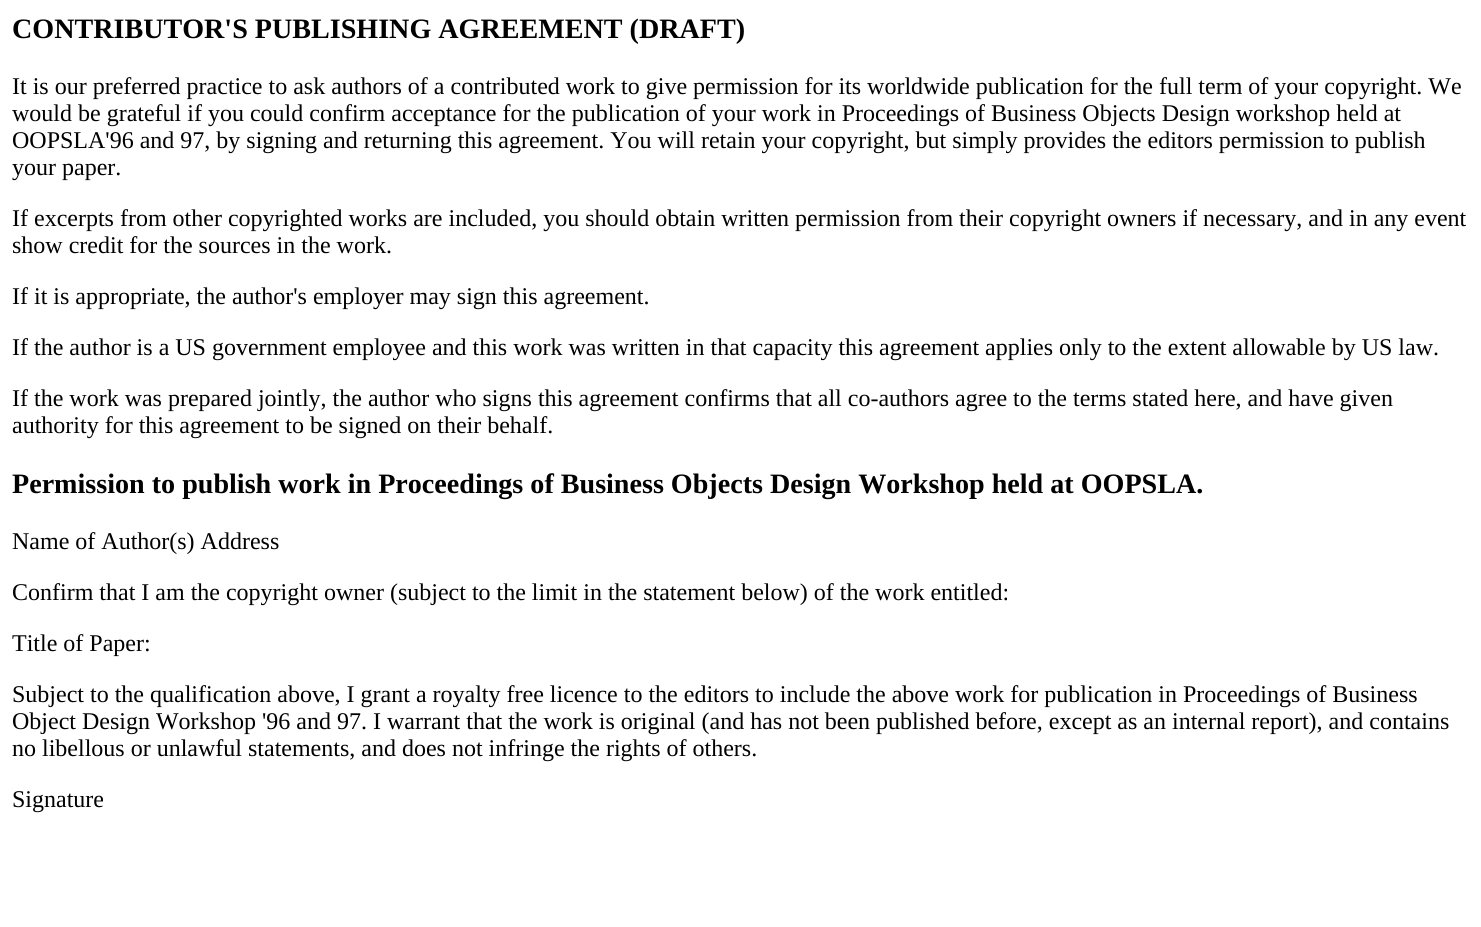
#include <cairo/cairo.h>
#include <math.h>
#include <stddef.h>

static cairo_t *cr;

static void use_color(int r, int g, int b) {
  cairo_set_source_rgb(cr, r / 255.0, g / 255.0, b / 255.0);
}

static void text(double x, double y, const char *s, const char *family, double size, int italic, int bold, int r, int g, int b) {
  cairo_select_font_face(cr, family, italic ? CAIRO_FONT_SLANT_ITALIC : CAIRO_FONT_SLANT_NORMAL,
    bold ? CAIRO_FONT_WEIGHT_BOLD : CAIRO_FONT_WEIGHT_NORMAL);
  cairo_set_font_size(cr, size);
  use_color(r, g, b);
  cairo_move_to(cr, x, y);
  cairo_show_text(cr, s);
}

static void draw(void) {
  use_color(255, 255, 255);
  cairo_paint(cr);
  text(12, 38, "CONTRIBUTOR'S PUBLISHING AGREEMENT (DRAFT)", "Liberation Serif", 28.1, 0, 1, 0, 0, 0);
  text(12, 94, "It is our preferred practice to ask authors of a contributed work to give permission for its worldwide publication for the full term of your copyright. We", "Liberation Serif", 24, 0, 0, 0, 0, 0);
  text(12, 121, "would be grateful if you could confirm acceptance for the publication of your work in Proceedings of Business Objects Design workshop held at", "Liberation Serif", 24, 0, 0, 0, 0, 0);
  text(12, 148, "OOPSLA'96 and 97, by signing and returning this agreement. You will retain your copyright, but simply provides the editors permission to publish", "Liberation Serif", 24, 0, 0, 0, 0, 0);
  text(12, 175, "your paper.", "Liberation Serif", 24, 0, 0, 0, 0, 0);
  text(12, 226, "If excerpts from other copyrighted works are included, you should obtain written permission from their copyright owners if necessary, and in any event", "Liberation Serif", 24, 0, 0, 0, 0, 0);
  text(12, 253, "show credit for the sources in the work.", "Liberation Serif", 24, 0, 0, 0, 0, 0);
  text(12, 304, "If it is appropriate, the author's employer may sign this agreement.", "Liberation Serif", 24, 0, 0, 0, 0, 0);
  text(12, 355, "If the author is a US government employee and this work was written in that capacity this agreement applies only to the extent allowable by US law.", "Liberation Serif", 24, 0, 0, 0, 0, 0);
  text(12, 406, "If the work was prepared jointly, the author who signs this agreement confirms that all co-authors agree to the terms stated here, and have given", "Liberation Serif", 24, 0, 0, 0, 0, 0);
  text(12, 433, "authority for this agreement to be signed on their behalf.", "Liberation Serif", 24, 0, 0, 0, 0, 0);
  text(12, 493, "Permission to publish work in Proceedings of Business Objects Design Workshop held at OOPSLA.", "Liberation Serif", 28.1, 0, 1, 0, 0, 0);
  text(12, 549, "Name of Author(s) Address", "Liberation Serif", 24, 0, 0, 0, 0, 0);
  text(12, 600, "Confirm that I am the copyright owner (subject to the limit in the statement below) of the work entitled:", "Liberation Serif", 24, 0, 0, 0, 0, 0);
  text(12, 651, "Title of Paper:", "Liberation Serif", 24, 0, 0, 0, 0, 0);
  text(12, 702, "Subject to the qualification above, I grant a royalty free licence to the editors to include the above work for publication in Proceedings of Business", "Liberation Serif", 24, 0, 0, 0, 0, 0);
  text(12, 729, "Object Design Workshop '96 and 97. I warrant that the work is original (and has not been published before, except as an internal report), and contains", "Liberation Serif", 24, 0, 0, 0, 0, 0);
  text(12, 756, "no libellous or unlawful statements, and does not infringe the rights of others.", "Liberation Serif", 24, 0, 0, 0, 0, 0);
  text(12, 807, "Signature", "Liberation Serif", 24, 0, 0, 0, 0, 0);
}

int main(void) {
  cairo_surface_t *surface = cairo_image_surface_create(CAIRO_FORMAT_RGB24, 1481, 927);
  cr = cairo_create(surface);
  cairo_font_options_t *options = cairo_font_options_create();
  cairo_font_options_set_hint_metrics(options, CAIRO_HINT_METRICS_OFF);
  cairo_font_options_set_hint_style(options, CAIRO_HINT_STYLE_NONE);
  cairo_set_font_options(cr, options);
  cairo_set_miter_limit(cr, 4);
  draw();
  cairo_surface_write_to_png(surface, "out.png");
  cairo_font_options_destroy(options);
  cairo_destroy(cr);
  cairo_surface_destroy(surface);
  return 0;
}
